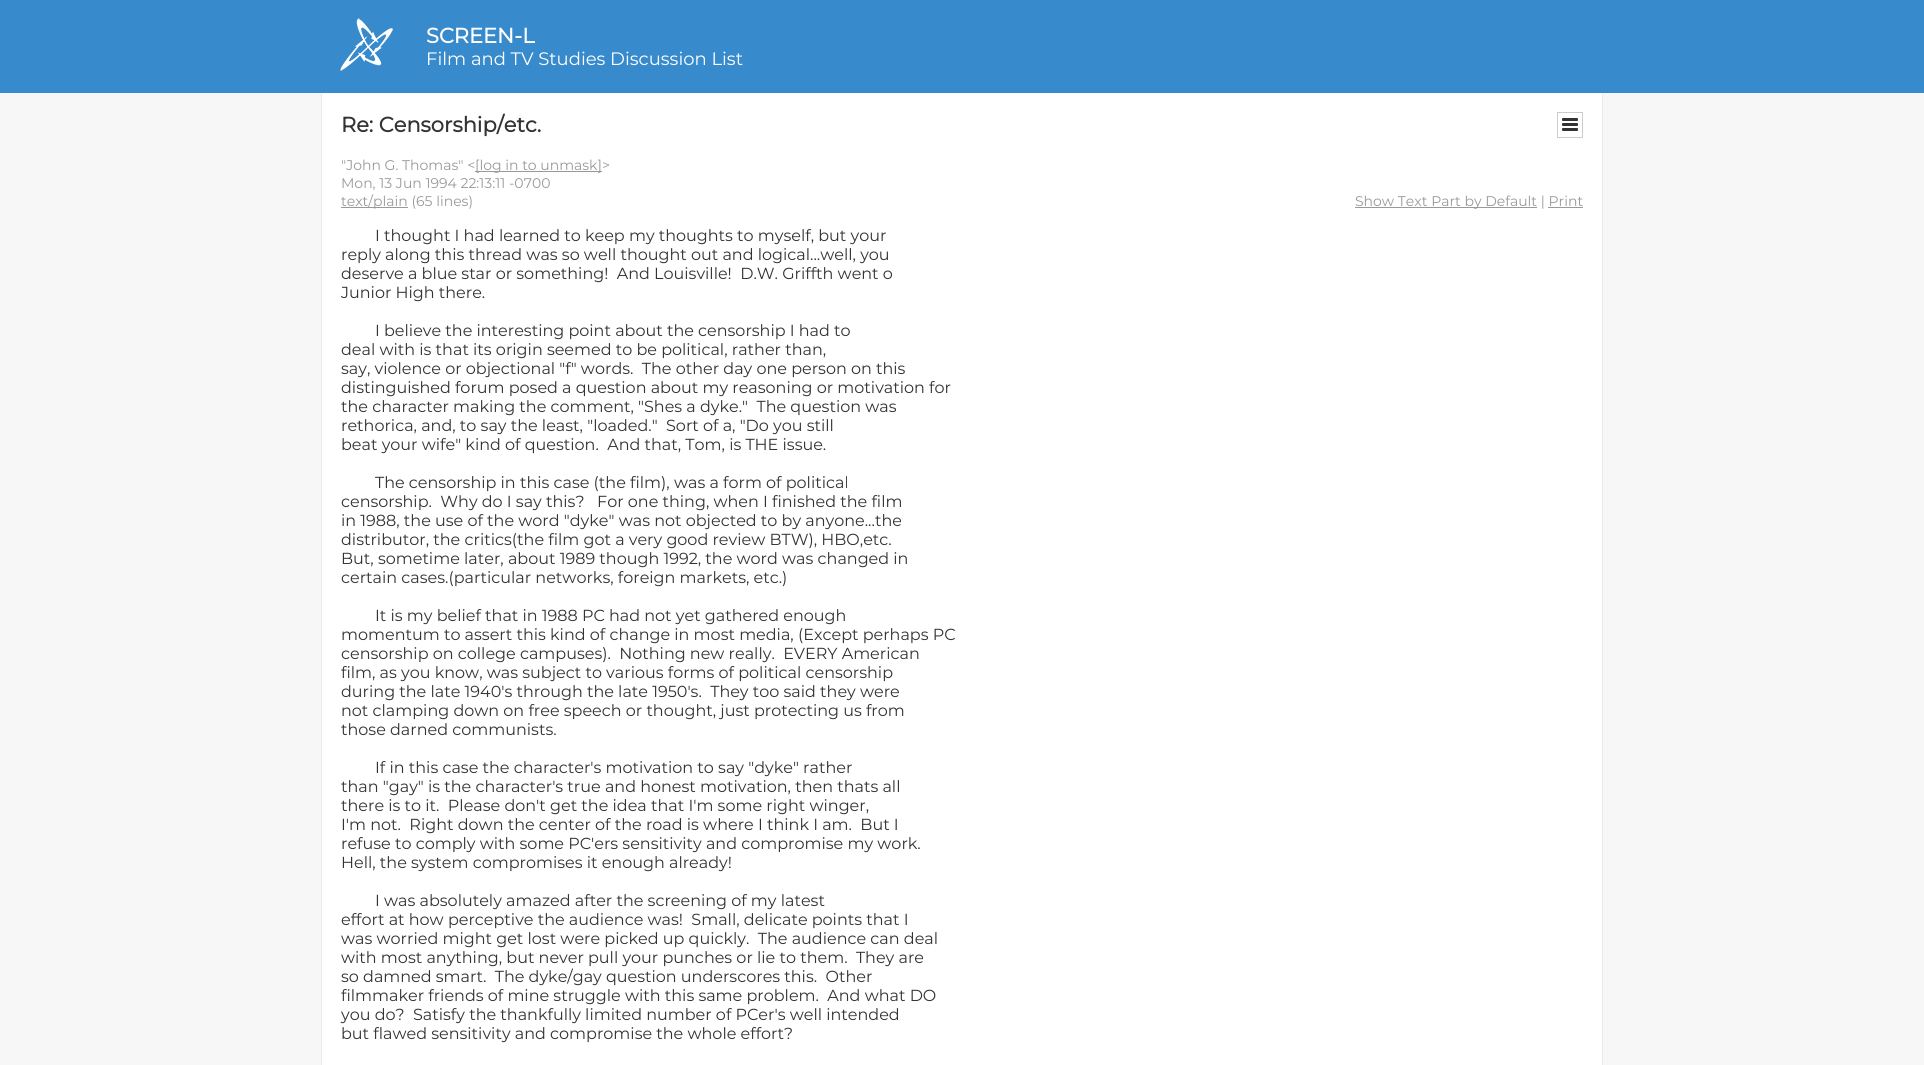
#include <cairo/cairo.h>
#include <math.h>
#include <stddef.h>

static cairo_t *cr;

static void use_color(int r, int g, int b) {
  cairo_set_source_rgb(cr, r / 255.0, g / 255.0, b / 255.0);
}

static void text(double x, double y, const char *s, const char *family, double size, int italic, int bold, int r, int g, int b) {
  cairo_select_font_face(cr, family, italic ? CAIRO_FONT_SLANT_ITALIC : CAIRO_FONT_SLANT_NORMAL,
    bold ? CAIRO_FONT_WEIGHT_BOLD : CAIRO_FONT_WEIGHT_NORMAL);
  cairo_set_font_size(cr, size);
  use_color(r, g, b);
  cairo_move_to(cr, x, y);
  cairo_show_text(cr, s);
}

static void box(double x, double y, double w, double h, int r, int g, int b) {
  use_color(r, g, b);
  cairo_rectangle(cr, x, y, w, h);
  cairo_fill(cr);
}

static void picture(const char *path, double x, double y, double w, double h) {
  cairo_surface_t *image = cairo_image_surface_create_from_png(path);
  cairo_save(cr);
  cairo_set_source_surface(cr, image, x, y);
  cairo_rectangle(cr, x, y, w, h);
  cairo_fill(cr);
  cairo_restore(cr);
  cairo_surface_destroy(image);
}

static void draw(void) {
  use_color(247, 247, 247);
  cairo_paint(cr);
  box(0, 0, 1924, 93, 55, 138, 204);
  picture("img_01.png", 340, 18, 53, 53);
  box(322, 93, 1280, 972, 255, 255, 255);
  box(1602, 93, 1, 972, 234, 234, 234);
  box(321, 93, 1, 972, 234, 234, 234);
  cairo_rectangle(cr, 1557.5, 112.5, 25, 25);
  use_color(204, 204, 204);
  cairo_set_line_width(cr, 1);
  cairo_stroke(cr);
  picture("img_02.png", 1562, 118, 16, 13);
  box(475, 171, 127, 1, 153, 153, 153);
  box(341, 207, 67, 1, 153, 153, 153);
  box(1355, 207, 182, 1, 153, 153, 153);
  box(1548, 207, 35, 1, 153, 153, 153);
  text(426, 43, "SCREEN-L", "Montserrat", 21, 0, 1, 255, 255, 255);
  text(426, 65, "Film and TV Studies Discussion List", "Montserrat Thin", 18, 0, 0, 255, 255, 255);
  text(341, 132, "Re: Censorship/etc.", "Montserrat", 21, 0, 1, 51, 51, 51);
  text(341, 170, "\"John G. Thomas\" <", "Montserrat Thin", 14, 0, 0, 153, 153, 153);
  text(475, 170, "[log in to unmask]>", "Montserrat Thin", 14, 0, 0, 153, 153, 153);
  text(341, 188, "Mon, 13 Jun 1994 22:13:11 -0700", "Montserrat Thin", 14, 0, 0, 153, 153, 153);
  text(341, 206, "text/plain (65 lines)", "Montserrat Thin", 14, 0, 0, 153, 153, 153);
  text(1355, 206, "Show Text Part by Default | Print", "Montserrat Thin", 14, 0, 0, 153, 153, 153);
  text(375, 241, "I thought I had learned to keep my thoughts to myself, but your", "Montserrat Thin", 16, 0, 0, 51, 51, 51);
  text(341, 260, "reply along this thread was so well thought out and logical...well, you", "Montserrat Thin", 16, 0, 0, 51, 51, 51);
  text(341, 279, "deserve a blue star or something!  And Louisville!  D.W. Griffth went o", "Montserrat Thin", 16, 0, 0, 51, 51, 51);
  text(341, 298, "Junior High there.", "Montserrat Thin", 16, 0, 0, 51, 51, 51);
  text(375, 336, "I believe the interesting point about the censorship I had to", "Montserrat Thin", 16, 0, 0, 51, 51, 51);
  text(341, 355, "deal with is that its origin seemed to be political, rather than,", "Montserrat Thin", 16, 0, 0, 51, 51, 51);
  text(341, 374, "say, violence or objectional \"f\" words.  The other day one person on this", "Montserrat Thin", 16, 0, 0, 51, 51, 51);
  text(341, 393, "distinguished forum posed a question about my reasoning or motivation for", "Montserrat Thin", 16, 0, 0, 51, 51, 51);
  text(341, 412, "the character making the comment, \"Shes a dyke.\"  The question was", "Montserrat Thin", 16, 0, 0, 51, 51, 51);
  text(341, 431, "rethorica, and, to say the least, \"loaded.\"  Sort of a, \"Do you still", "Montserrat Thin", 16, 0, 0, 51, 51, 51);
  text(341, 450, "beat your wife\" kind of question.  And that, Tom, is THE issue.", "Montserrat Thin", 16, 0, 0, 51, 51, 51);
  text(375, 488, "The censorship in this case (the film), was a form of political", "Montserrat Thin", 16, 0, 0, 51, 51, 51);
  text(341, 507, "censorship.  Why do I say this?   For one thing, when I finished the film", "Montserrat Thin", 16, 0, 0, 51, 51, 51);
  text(341, 526, "in 1988, the use of the word \"dyke\" was not objected to by anyone...the", "Montserrat Thin", 16, 0, 0, 51, 51, 51);
  text(341, 545, "distributor, the critics(the film got a very good review BTW), HBO,etc.", "Montserrat Thin", 16, 0, 0, 51, 51, 51);
  text(341, 564, "But, sometime later, about 1989 though 1992, the word was changed in", "Montserrat Thin", 16, 0, 0, 51, 51, 51);
  text(341, 583, "certain cases.(particular networks, foreign markets, etc.)", "Montserrat Thin", 16, 0, 0, 51, 51, 51);
  text(375, 621, "It is my belief that in 1988 PC had not yet gathered enough", "Montserrat Thin", 16, 0, 0, 51, 51, 51);
  text(341, 640, "momentum to assert this kind of change in most media, (Except perhaps PC", "Montserrat Thin", 16, 0, 0, 51, 51, 51);
  text(341, 659, "censorship on college campuses).  Nothing new really.  EVERY American", "Montserrat Thin", 16, 0, 0, 51, 51, 51);
  text(341, 678, "film, as you know, was subject to various forms of political censorship", "Montserrat Thin", 16, 0, 0, 51, 51, 51);
  text(341, 697, "during the late 1940's through the late 1950's.  They too said they were", "Montserrat Thin", 16, 0, 0, 51, 51, 51);
  text(341, 716, "not clamping down on free speech or thought, just protecting us from", "Montserrat Thin", 16, 0, 0, 51, 51, 51);
  text(341, 735, "those darned communists.", "Montserrat Thin", 16, 0, 0, 51, 51, 51);
  text(375, 773, "If in this case the character's motivation to say \"dyke\" rather", "Montserrat Thin", 16, 0, 0, 51, 51, 51);
  text(341, 792, "than \"gay\" is the character's true and honest motivation, then thats all", "Montserrat Thin", 16, 0, 0, 51, 51, 51);
  text(341, 811, "there is to it.  Please don't get the idea that I'm some right winger,", "Montserrat Thin", 16, 0, 0, 51, 51, 51);
  text(341, 830, "I'm not.  Right down the center of the road is where I think I am.  But I", "Montserrat Thin", 16, 0, 0, 51, 51, 51);
  text(341, 849, "refuse to comply with some PC'ers sensitivity and compromise my work.", "Montserrat Thin", 16, 0, 0, 51, 51, 51);
  text(341, 868, "Hell, the system compromises it enough already!", "Montserrat Thin", 16, 0, 0, 51, 51, 51);
  text(375, 906, "I was absolutely amazed after the screening of my latest", "Montserrat Thin", 16, 0, 0, 51, 51, 51);
  text(341, 925, "effort at how perceptive the audience was!  Small, delicate points that I", "Montserrat Thin", 16, 0, 0, 51, 51, 51);
  text(341, 944, "was worried might get lost were picked up quickly.  The audience can deal", "Montserrat Thin", 16, 0, 0, 51, 51, 51);
  text(341, 963, "with most anything, but never pull your punches or lie to them.  They are", "Montserrat Thin", 16, 0, 0, 51, 51, 51);
  text(341, 982, "so damned smart.  The dyke/gay question underscores this.  Other", "Montserrat Thin", 16, 0, 0, 51, 51, 51);
  text(341, 1001, "filmmaker friends of mine struggle with this same problem.  And what DO", "Montserrat Thin", 16, 0, 0, 51, 51, 51);
  text(341, 1020, "you do?  Satisfy the thankfully limited number of PCer's well intended", "Montserrat Thin", 16, 0, 0, 51, 51, 51);
  text(341, 1039, "but flawed sensitivity and compromise the whole effort?", "Montserrat Thin", 16, 0, 0, 51, 51, 51);
}

int main(void) {
  cairo_surface_t *surface = cairo_image_surface_create(CAIRO_FORMAT_RGB24, 1924, 1065);
  cr = cairo_create(surface);
  cairo_font_options_t *options = cairo_font_options_create();
  cairo_font_options_set_hint_metrics(options, CAIRO_HINT_METRICS_OFF);
  cairo_font_options_set_hint_style(options, CAIRO_HINT_STYLE_NONE);
  cairo_set_font_options(cr, options);
  cairo_set_miter_limit(cr, 4);
  draw();
  cairo_surface_write_to_png(surface, "out.png");
  cairo_font_options_destroy(options);
  cairo_destroy(cr);
  cairo_surface_destroy(surface);
  return 0;
}
